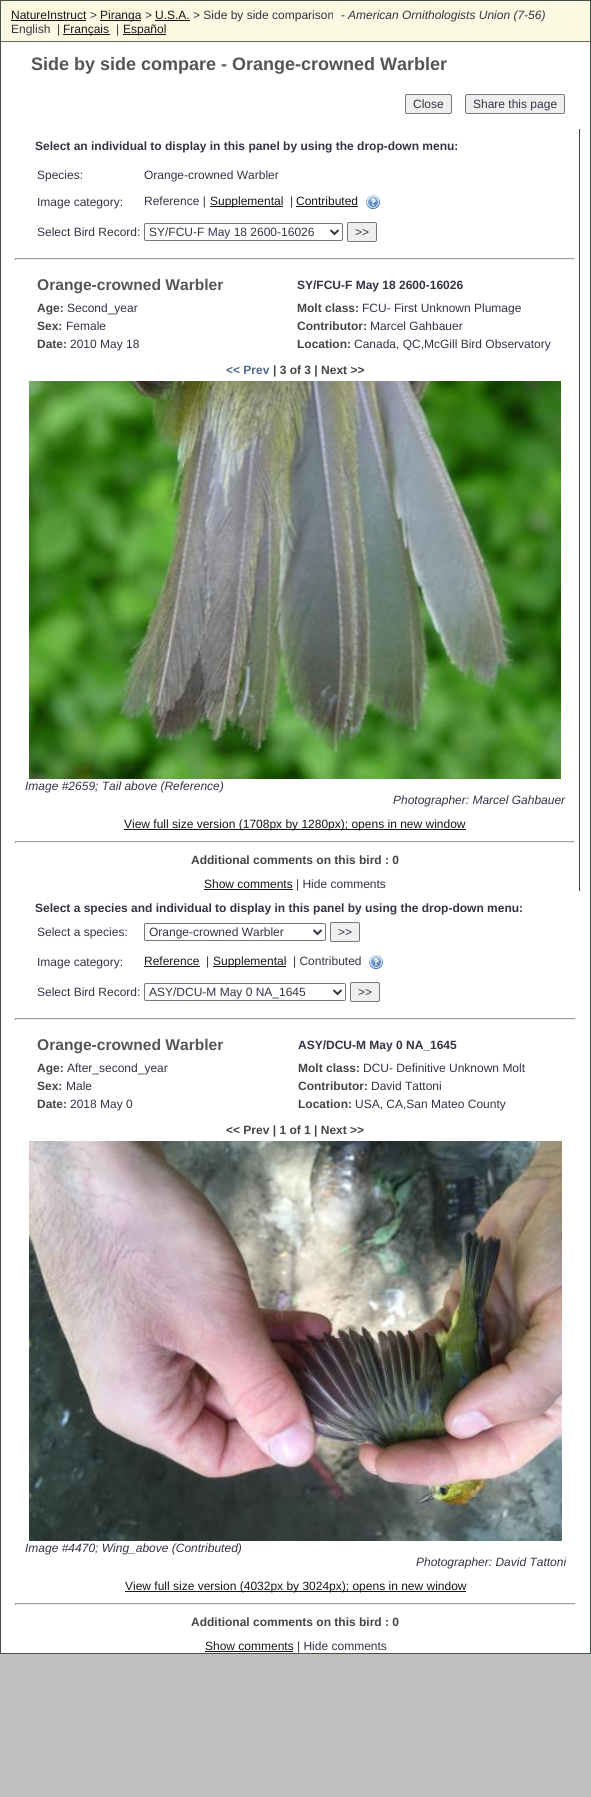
#include <cairo/cairo.h>
#include <math.h>
#include <stddef.h>

static cairo_t *cr;

static void use_color(int r, int g, int b) {
  cairo_set_source_rgb(cr, r / 255.0, g / 255.0, b / 255.0);
}

static void text(double x, double y, const char *s, const char *family, double size, int italic, int bold, int r, int g, int b) {
  cairo_select_font_face(cr, family, italic ? CAIRO_FONT_SLANT_ITALIC : CAIRO_FONT_SLANT_NORMAL,
    bold ? CAIRO_FONT_WEIGHT_BOLD : CAIRO_FONT_WEIGHT_NORMAL);
  cairo_set_font_size(cr, size);
  use_color(r, g, b);
  cairo_move_to(cr, x, y);
  cairo_show_text(cr, s);
}

static void box(double x, double y, double w, double h, int r, int g, int b) {
  use_color(r, g, b);
  cairo_rectangle(cr, x, y, w, h);
  cairo_fill(cr);
}

static void round_rect(double x, double y, double w, double h, double r) {
  cairo_new_sub_path(cr);
  cairo_arc(cr, x + w - r, y + h - r, r, 0, M_PI / 2);
  cairo_arc(cr, x + r, y + h - r, r, M_PI / 2, M_PI);
  cairo_arc(cr, x + r, y + r, r, M_PI, 1.5 * M_PI);
  cairo_arc(cr, x + w - r, y + r, r, 1.5 * M_PI, 2 * M_PI);
  cairo_close_path(cr);
}

static void picture(const char *path, double x, double y, double w, double h) {
  cairo_surface_t *image = cairo_image_surface_create_from_png(path);
  cairo_save(cr);
  cairo_set_source_surface(cr, image, x, y);
  cairo_rectangle(cr, x, y, w, h);
  cairo_fill(cr);
  cairo_restore(cr);
  cairo_surface_destroy(image);
}

static void draw(void) {
  use_color(192, 192, 192);
  cairo_paint(cr);
  box(1, 42, 589, 1611, 255, 255, 255);
  cairo_rectangle(cr, 0.5, 0.5, 590, 1653);
  use_color(70, 82, 72);
  cairo_set_line_width(cr, 1);
  cairo_stroke(cr);
  box(1, 1, 589, 40, 251, 249, 226);
  box(1, 41, 589, 1, 103, 103, 103);
  box(11, 20, 75, 1, 23, 23, 23);
  box(100, 20, 41, 1, 23, 23, 23);
  box(155, 20, 35, 1, 23, 23, 23);
  box(63, 34, 47, 1, 23, 23, 23);
  box(123, 34, 43, 1, 23, 23, 23);
  use_color(239, 239, 239);
  round_rect(405.5, 94.5, 46, 19, 1.5);
  cairo_fill_preserve(cr);
  use_color(118, 118, 118);
  cairo_stroke(cr);
  use_color(239, 239, 239);
  round_rect(465.5, 94.5, 99, 19, 1.5);
  cairo_fill_preserve(cr);
  use_color(118, 118, 118);
  cairo_stroke(cr);
  box(579, 129, 1, 762, 69, 69, 69);
  box(210, 206, 73, 1, 23, 23, 23);
  box(296, 206, 62, 1, 23, 23, 23);
  picture("img_01.png", 366, 195, 14, 14);
  round_rect(144.5, 223.5, 198, 17, 1.5);
  use_color(118, 118, 118);
  cairo_stroke(cr);
  cairo_new_path(cr);
  cairo_move_to(cr, 330.5, 230);
  cairo_line_to(cr, 334.5, 234);
  cairo_line_to(cr, 338.5, 230);
  use_color(51, 51, 68);
  cairo_set_line_width(cr, 2);
  cairo_stroke(cr);
  use_color(239, 239, 239);
  round_rect(347.5, 222.5, 29, 19, 1.5);
  cairo_fill_preserve(cr);
  use_color(118, 118, 118);
  cairo_set_line_width(cr, 1);
  cairo_stroke(cr);
  box(15, 258, 560, 1, 159, 159, 159);
  box(574, 258, 1, 2, 238, 238, 238);
  box(15, 259, 560, 1, 238, 238, 238);
  box(15, 258, 1, 2, 159, 159, 159);
  picture("img_02.png", 29, 381, 532, 398);
  box(124, 829, 342, 1, 23, 23, 23);
  box(15, 841, 560, 1, 159, 159, 159);
  box(574, 841, 1, 2, 238, 238, 238);
  box(15, 842, 560, 1, 238, 238, 238);
  box(15, 841, 1, 2, 159, 159, 159);
  box(204, 889, 89, 1, 23, 23, 23);
  round_rect(144.5, 923.5, 181, 17, 1.5);
  use_color(118, 118, 118);
  cairo_stroke(cr);
  cairo_new_path(cr);
  cairo_move_to(cr, 313.5, 930);
  cairo_line_to(cr, 317.5, 934);
  cairo_line_to(cr, 321.5, 930);
  use_color(51, 51, 68);
  cairo_set_line_width(cr, 2);
  cairo_stroke(cr);
  use_color(239, 239, 239);
  round_rect(330.5, 922.5, 29, 19, 1.5);
  cairo_fill_preserve(cr);
  use_color(118, 118, 118);
  cairo_set_line_width(cr, 1);
  cairo_stroke(cr);
  box(144, 966, 56, 1, 23, 23, 23);
  box(213, 966, 73, 1, 23, 23, 23);
  picture("img_01.png", 369, 955, 14, 14);
  round_rect(144.5, 983.5, 201, 17, 1.5);
  use_color(118, 118, 118);
  cairo_stroke(cr);
  cairo_new_path(cr);
  cairo_move_to(cr, 333.5, 990);
  cairo_line_to(cr, 337.5, 994);
  cairo_line_to(cr, 341.5, 990);
  use_color(51, 51, 68);
  cairo_set_line_width(cr, 2);
  cairo_stroke(cr);
  use_color(239, 239, 239);
  round_rect(350.5, 982.5, 29, 19, 1.5);
  cairo_fill_preserve(cr);
  use_color(118, 118, 118);
  cairo_set_line_width(cr, 1);
  cairo_stroke(cr);
  box(15, 1018, 561, 1, 159, 159, 159);
  box(575, 1018, 1, 2, 238, 238, 238);
  box(15, 1019, 561, 1, 238, 238, 238);
  box(15, 1018, 1, 2, 159, 159, 159);
  picture("img_03.png", 29, 1141, 533, 400);
  box(125, 1591, 341, 1, 23, 23, 23);
  box(15, 1603, 561, 1, 159, 159, 159);
  box(575, 1603, 1, 2, 238, 238, 238);
  box(15, 1604, 561, 1, 238, 238, 238);
  box(15, 1603, 1, 2, 159, 159, 159);
  box(205, 1651, 88, 1, 23, 23, 23);
  text(11, 19, "NatureInstruct", "Liberation Sans", 12, 0, 0, 23, 23, 23);
  text(90, 19, ">", "Liberation Sans", 12, 0, 0, 51, 51, 68);
  text(100, 19, "Piranga", "Liberation Sans", 12, 0, 0, 23, 23, 23);
  text(145, 19, ">", "Liberation Sans", 12, 0, 0, 51, 51, 68);
  text(155, 19, "U.S.A.", "Liberation Sans", 12, 0, 0, 23, 23, 23);
  text(193, 19, "> Side by side comparison", "Liberation Sans", 12, 0, 0, 51, 51, 68);
  text(341, 19, "-", "Liberation Sans", 12, 0, 0, 51, 51, 68);
  text(348, 19, "American Ornithologists Union (7-56)", "Liberation Sans", 12, 1, 0, 51, 51, 68);
  text(11, 33, "English  |", "Liberation Sans", 12, 0, 0, 51, 51, 68);
  text(63, 33, "Français", "Liberation Sans", 12, 0, 0, 23, 23, 23);
  text(116, 33, "|", "Liberation Sans", 12, 0, 0, 51, 51, 68);
  text(123, 33, "Español", "Liberation Sans", 12, 0, 0, 23, 23, 23);
  text(31, 70, "Side by side compare - Orange-crowned Warbler", "Liberation Sans", 18, 0, 1, 85, 85, 85);
  text(413, 108, "Close", "Liberation Sans", 12, 0, 0, 51, 51, 68);
  text(473, 108, "Share this page", "Liberation Sans", 12, 0, 0, 51, 51, 68);
  text(35, 150, "Select an individual to display in this panel by using the drop-down menu:", "Liberation Sans", 12, 0, 1, 51, 51, 68);
  text(37, 179, "Species:", "Liberation Sans", 12, 0, 0, 51, 51, 68);
  text(144, 179, "Orange-crowned Warbler", "Liberation Sans", 12, 0, 0, 51, 51, 68);
  text(37, 206, "Image category:", "Liberation Sans", 12, 0, 0, 51, 51, 68);
  text(144, 205, "Reference |", "Liberation Sans", 12, 0, 0, 51, 51, 68);
  text(210, 205, "Supplemental", "Liberation Sans", 12, 0, 0, 23, 23, 23);
  text(290, 205, "|", "Liberation Sans", 12, 0, 0, 51, 51, 68);
  text(296, 205, "Contributed", "Liberation Sans", 12, 0, 0, 23, 23, 23);
  text(37, 236, "Select Bird Record:", "Liberation Sans", 12, 0, 0, 51, 51, 68);
  text(149, 236, "SY/FCU-F May 18 2600-16026", "Liberation Sans", 12, 0, 0, 51, 51, 68);
  text(355, 236, ">>", "Liberation Sans", 12, 0, 0, 51, 51, 68);
  text(37, 290, "Orange-crowned Warbler", "Liberation Sans", 15.6, 0, 1, 85, 85, 85);
  text(297, 289, "SY/FCU-F May 18 2600-16026", "Liberation Sans", 12, 0, 1, 51, 51, 68);
  text(37, 312, "Age:", "Liberation Sans", 12, 0, 1, 68, 68, 68);
  text(67, 312, "Second_year", "Liberation Sans", 12, 0, 0, 51, 51, 68);
  text(297, 312, "Molt class:", "Liberation Sans", 12, 0, 1, 68, 68, 68);
  text(362, 312, "FCU- First Unknown Plumage", "Liberation Sans", 12, 0, 0, 51, 51, 68);
  text(37, 330, "Sex:", "Liberation Sans", 12, 0, 1, 68, 68, 68);
  text(66, 330, "Female", "Liberation Sans", 12, 0, 0, 51, 51, 68);
  text(297, 330, "Contributor:", "Liberation Sans", 12, 0, 1, 68, 68, 68);
  text(370, 330, "Marcel Gahbauer", "Liberation Sans", 12, 0, 0, 51, 51, 68);
  text(37, 348, "Date:", "Liberation Sans", 12, 0, 1, 68, 68, 68);
  text(70, 348, "2010 May 18", "Liberation Sans", 12, 0, 0, 51, 51, 68);
  text(297, 348, "Location:", "Liberation Sans", 12, 0, 1, 68, 68, 68);
  text(354, 348, "Canada, QC,McGill Bird Observatory", "Liberation Sans", 12, 0, 0, 51, 51, 68);
  text(226, 374, "<< Prev", "Liberation Sans", 12, 0, 1, 75, 106, 135);
  text(273, 374, "| 3 of 3 | Next >>", "Liberation Sans", 12, 0, 1, 68, 68, 68);
  text(25, 790, "Image #2659; Tail above (Reference)", "Liberation Sans", 12, 1, 0, 51, 51, 68);
  text(393, 804, "Photographer: Marcel Gahbauer", "Liberation Sans", 12, 1, 0, 51, 51, 68);
  text(124, 828, "View full size version (1708px by 1280px); opens in new window", "Liberation Sans", 12, 0, 0, 23, 23, 23);
  text(191, 864, "Additional comments on this bird : 0", "Liberation Sans", 12, 0, 1, 68, 68, 68);
  text(204, 888, "Show comments", "Liberation Sans", 12, 0, 0, 23, 23, 23);
  text(296, 888, "| Hide comments", "Liberation Sans", 12, 0, 0, 51, 51, 68);
  text(35, 912, "Select a species and individual to display in this panel by using the drop-down menu:", "Liberation Sans", 12, 0, 1, 51, 51, 68);
  text(37, 936, "Select a species:", "Liberation Sans", 12, 0, 0, 51, 51, 68);
  text(149, 936, "Orange-crowned Warbler", "Liberation Sans", 12, 0, 0, 51, 51, 68);
  text(338, 936, ">>", "Liberation Sans", 12, 0, 0, 51, 51, 68);
  text(37, 966, "Image category:", "Liberation Sans", 12, 0, 0, 51, 51, 68);
  text(144, 965, "Reference", "Liberation Sans", 12, 0, 0, 23, 23, 23);
  text(206, 965, "|", "Liberation Sans", 12, 0, 0, 51, 51, 68);
  text(213, 965, "Supplemental", "Liberation Sans", 12, 0, 0, 23, 23, 23);
  text(293, 965, "| Contributed", "Liberation Sans", 12, 0, 0, 51, 51, 68);
  text(37, 996, "Select Bird Record:", "Liberation Sans", 12, 0, 0, 51, 51, 68);
  text(149, 996, "ASY/DCU-M May 0 NA_1645", "Liberation Sans", 12, 0, 0, 51, 51, 68);
  text(358, 996, ">>", "Liberation Sans", 12, 0, 0, 51, 51, 68);
  text(37, 1050, "Orange-crowned Warbler", "Liberation Sans", 15.6, 0, 1, 85, 85, 85);
  text(298, 1049, "ASY/DCU-M May 0 NA_1645", "Liberation Sans", 12, 0, 1, 51, 51, 68);
  text(37, 1072, "Age:", "Liberation Sans", 12, 0, 1, 68, 68, 68);
  text(67, 1072, "After_second_year", "Liberation Sans", 12, 0, 0, 51, 51, 68);
  text(298, 1072, "Molt class:", "Liberation Sans", 12, 0, 1, 68, 68, 68);
  text(363, 1072, "DCU- Definitive Unknown Molt", "Liberation Sans", 12, 0, 0, 51, 51, 68);
  text(37, 1090, "Sex:", "Liberation Sans", 12, 0, 1, 68, 68, 68);
  text(66, 1090, "Male", "Liberation Sans", 12, 0, 0, 51, 51, 68);
  text(298, 1090, "Contributor:", "Liberation Sans", 12, 0, 1, 68, 68, 68);
  text(371, 1090, "David Tattoni", "Liberation Sans", 12, 0, 0, 51, 51, 68);
  text(37, 1108, "Date:", "Liberation Sans", 12, 0, 1, 68, 68, 68);
  text(70, 1108, "2018 May 0", "Liberation Sans", 12, 0, 0, 51, 51, 68);
  text(298, 1108, "Location:", "Liberation Sans", 12, 0, 1, 68, 68, 68);
  text(355, 1108, "USA, CA,San Mateo County", "Liberation Sans", 12, 0, 0, 51, 51, 68);
  text(226, 1134, "<< Prev | 1 of 1 | Next >>", "Liberation Sans", 12, 0, 1, 68, 68, 68);
  text(25, 1552, "Image #4470; Wing_above (Contributed)", "Liberation Sans", 12, 1, 0, 51, 51, 68);
  text(416, 1566, "Photographer: David Tattoni", "Liberation Sans", 12, 1, 0, 51, 51, 68);
  text(125, 1590, "View full size version (4032px by 3024px); opens in new window", "Liberation Sans", 12, 0, 0, 23, 23, 23);
  text(191, 1626, "Additional comments on this bird : 0", "Liberation Sans", 12, 0, 1, 68, 68, 68);
  text(205, 1650, "Show comments", "Liberation Sans", 12, 0, 0, 23, 23, 23);
  text(297, 1650, "| Hide comments", "Liberation Sans", 12, 0, 0, 51, 51, 68);
}

int main(void) {
  cairo_surface_t *surface = cairo_image_surface_create(CAIRO_FORMAT_RGB24, 591, 1797);
  cr = cairo_create(surface);
  cairo_font_options_t *options = cairo_font_options_create();
  cairo_font_options_set_hint_metrics(options, CAIRO_HINT_METRICS_OFF);
  cairo_font_options_set_hint_style(options, CAIRO_HINT_STYLE_NONE);
  cairo_set_font_options(cr, options);
  cairo_set_miter_limit(cr, 4);
  draw();
  cairo_surface_write_to_png(surface, "out.png");
  cairo_font_options_destroy(options);
  cairo_destroy(cr);
  cairo_surface_destroy(surface);
  return 0;
}
